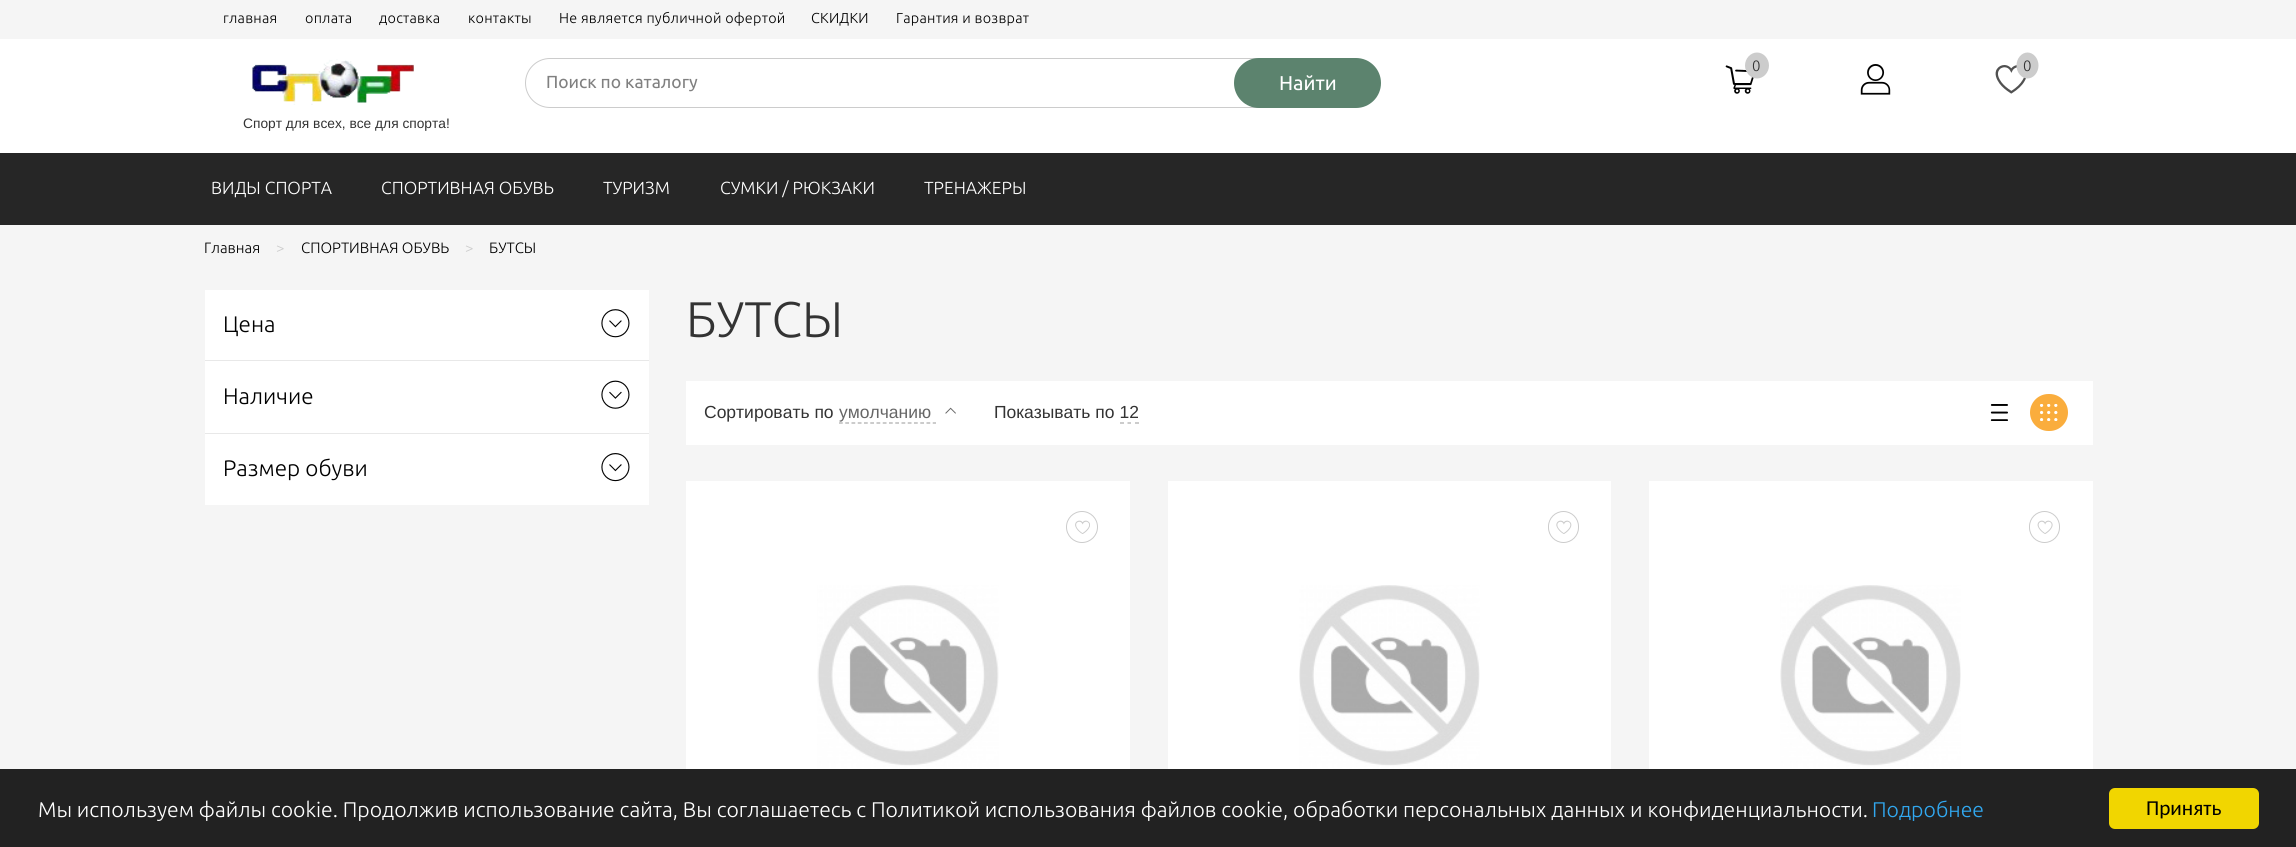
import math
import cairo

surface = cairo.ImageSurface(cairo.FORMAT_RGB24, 2296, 847)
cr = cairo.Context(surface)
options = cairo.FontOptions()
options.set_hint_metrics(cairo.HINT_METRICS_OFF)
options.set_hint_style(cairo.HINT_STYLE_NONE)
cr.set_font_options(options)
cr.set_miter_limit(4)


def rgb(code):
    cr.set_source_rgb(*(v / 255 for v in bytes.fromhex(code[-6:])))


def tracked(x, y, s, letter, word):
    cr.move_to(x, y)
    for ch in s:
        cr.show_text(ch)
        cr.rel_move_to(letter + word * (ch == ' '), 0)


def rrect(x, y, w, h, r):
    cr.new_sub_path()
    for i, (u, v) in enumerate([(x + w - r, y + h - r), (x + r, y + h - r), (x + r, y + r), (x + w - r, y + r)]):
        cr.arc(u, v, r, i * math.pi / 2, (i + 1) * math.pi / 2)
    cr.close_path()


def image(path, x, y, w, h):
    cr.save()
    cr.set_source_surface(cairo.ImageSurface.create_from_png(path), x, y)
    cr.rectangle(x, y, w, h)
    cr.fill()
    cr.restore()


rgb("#f5f5f5")
cr.paint()
rgb("#ffffff")
cr.rectangle(0, 39, 2296, 114)
cr.fill()
image("img/1.png", 1725, 65, 29, 29)
rgb("#cccccc")
cr.new_path()
cr.move_to(1757, 52.5)
cr.curve_to(1763.5, 52.5, 1769, 58.5, 1769, 65.5)
cr.curve_to(1769, 72.5, 1763.5, 78.5, 1757, 78.5)
cr.curve_to(1750.5, 78.5, 1745, 72.5, 1745, 65.5)
cr.curve_to(1745, 58.5, 1750.5, 52.5, 1757, 52.5)
cr.close_path()
cr.fill()
image("img/2.png", 1860, 64, 31, 31)
image("img/3.png", 1995, 65, 31, 29)
cr.new_path()
cr.move_to(2027.5, 52.5)
cr.curve_to(2033.5, 52.5, 2038.5, 58.5, 2038.5, 65.5)
cr.curve_to(2038.5, 72.5, 2033.5, 78.5, 2027.5, 78.5)
cr.curve_to(2021.5, 78.5, 2016.5, 72.5, 2016.5, 65.5)
cr.curve_to(2016.5, 58.5, 2021.5, 52.5, 2027.5, 52.5)
cr.close_path()
cr.fill()
rrect(525.5, 58.5, 759, 49, 24.5)
cr.set_line_width(1)
cr.stroke()
rgb("#5c836e")
rrect(1234, 58, 147, 50, 25)
cr.fill()
image("img/4.png", 252, 59, 162, 46)
for x, y, w, h, color in [
    (0, 153, 2296, 72, "#262626"),
    (205, 290, 444, 215, "#ffffff"),
    (205, 360, 444, 1, "#e8e8e8"),
]:
    rgb(color)
    cr.rectangle(x, y, w, h)
    cr.fill()
image("img/5.png", 601, 309, 29, 29)
cr.rectangle(205, 433, 444, 1)
cr.fill()
image("img/6.png", 601, 380, 29, 29)
image("img/7.png", 601, 453, 29, 29)
rgb("#ffffff")
cr.rectangle(686, 381, 1407, 64)
cr.fill()
cr.new_path()
cr.move_to(839, 423)
cr.line_to(936, 423)
rgb("#aaaaaa")
cr.set_line_width(1.2)
cr.set_dash([3.75, 2.5])
cr.stroke()
image("img/8.png", 945, 407, 11, 7)
cr.new_path()
cr.move_to(1120, 423)
cr.line_to(1124, 423)
cr.move_to(1127.5, 423)
cr.line_to(1131, 423)
cr.move_to(1135, 423)
cr.line_to(1139, 423)
cr.set_dash([])
cr.stroke()
image("img/9.png", 1990, 404, 18, 17)
rgb("#faad3d")
rrect(2030, 394, 38, 37, 18.5)
cr.fill()
image("img/10.png", 2040, 404, 18, 17)
rgb("#ffffff")
cr.rectangle(686, 481, 444, 288)
cr.fill()
image("img/11.png", 1075, 520, 15, 14)
cr.arc(1082, 527, 15.5, 0, 2 * math.pi)
rgb("#cccccc")
cr.set_line_width(1)
cr.stroke()
image("img/12.png", 817, 585, 182, 184)
rgb("#ffffff")
cr.rectangle(1168, 481, 443, 288)
cr.fill()
image("img/13.png", 1556, 520, 16, 14)
rrect(1548.5, 511.5, 30, 31, 15)
rgb("#cccccc")
cr.stroke()
image("img/14.png", 1299, 585, 181, 184)
rgb("#ffffff")
cr.rectangle(1649, 481, 444, 288)
cr.fill()
image("img/15.png", 2037, 520, 16, 14)
rrect(2029.5, 511.5, 30, 31, 15)
rgb("#cccccc")
cr.stroke()
image("img/16.png", 1780, 585, 181, 184)
rgb("#222222")
cr.rectangle(0, 769, 2296, 78)
cr.fill()
rgb("#f1d600")
rrect(2109, 788, 150, 41, 6)
cr.fill()
cr.select_font_face("Ubuntu Light")
cr.set_font_size(14.4)
rgb("#000000")
for x, y, s in [
    (223, 23, "главная"),
    (305, 23, "оплата"),
    (379, 23, "доставка"),
    (468, 23, "контакты"),
    (559, 23, "Не является публичной офертой"),
    (811, 23, "СКИДКИ"),
    (896, 23, "Гарантия и возврат"),
]:
    tracked(x, y, s, 0.25, 0)
cr.set_font_size(15)
rgb("#333333")
cr.move_to(1752, 71)
cr.show_text("0")
cr.move_to(2023, 71)
cr.show_text("0")
cr.select_font_face("Ubuntu")
cr.set_font_size(17.5)
rgb("#808080")
cr.move_to(546, 88)
cr.show_text("Поиск по каталогу")
cr.set_font_size(20)
rgb("#ffffff")
cr.move_to(1279, 90)
cr.show_text("Найти")
cr.select_font_face("Liberation Sans")
cr.set_font_size(13.75)
rgb("#333333")
cr.move_to(243, 128)
cr.show_text("Спорт для всех, все для спорта!")
cr.select_font_face("Ubuntu Light")
cr.set_font_size(17.5)
rgb("#ffffff")
for x, y, s in [
    (211, 194, "ВИДЫ СПОРТА"),
    (381, 194, "СПОРТИВНАЯ ОБУВЬ"),
    (603, 194, "ТУРИЗМ"),
    (720, 194, "СУМКИ / РЮКЗАКИ"),
    (924, 194, "ТРЕНАЖЕРЫ"),
]:
    cr.move_to(x, y)
    cr.show_text(s)
cr.set_font_size(15)
rgb("#000000")
cr.move_to(204, 253)
cr.show_text("Главная")
rgb("#cccccc")
cr.move_to(276, 253)
cr.show_text(">")
rgb("#000000")
cr.move_to(301, 253)
cr.show_text("СПОРТИВНАЯ ОБУВЬ")
rgb("#cccccc")
cr.move_to(465, 253)
cr.show_text(">")
rgb("#000000")
cr.move_to(489, 253)
cr.show_text("БУТСЫ")
cr.set_font_size(22.5)
for x, y, s in [
    (223, 332, "Цена"),
    (223, 404, "Наличие"),
    (223, 476, "Размер обуви"),
]:
    cr.move_to(x, y)
    cr.show_text(s)
cr.set_font_size(50)
rgb("#333333")
cr.move_to(686, 337)
cr.show_text("БУТСЫ")
cr.select_font_face("Liberation Sans")
cr.set_font_size(17.5)
cr.move_to(704, 418)
cr.show_text("Сортировать по")
rgb("#666666")
cr.move_to(839, 418)
cr.show_text("умолчанию")
rgb("#333333")
cr.move_to(994, 418)
cr.show_text("Показывать по 12")
cr.select_font_face("Ubuntu Light")
cr.set_font_size(21.25)
rgb("#ffffff")
cr.move_to(38, 817)
cr.show_text("Мы используем файлы cookie. Продолжив использование сайта, Вы соглашаетесь с Политикой использования файлов cookie, обработки персональных данных и конфиденциальности.")
rgb("#31a8f0")
cr.move_to(1872, 817)
cr.show_text("Подробнее")
cr.select_font_face("Carlito")
rgb("#000000")
cr.move_to(2146, 815)
cr.show_text("Принять")
surface.write_to_png("page.png")
